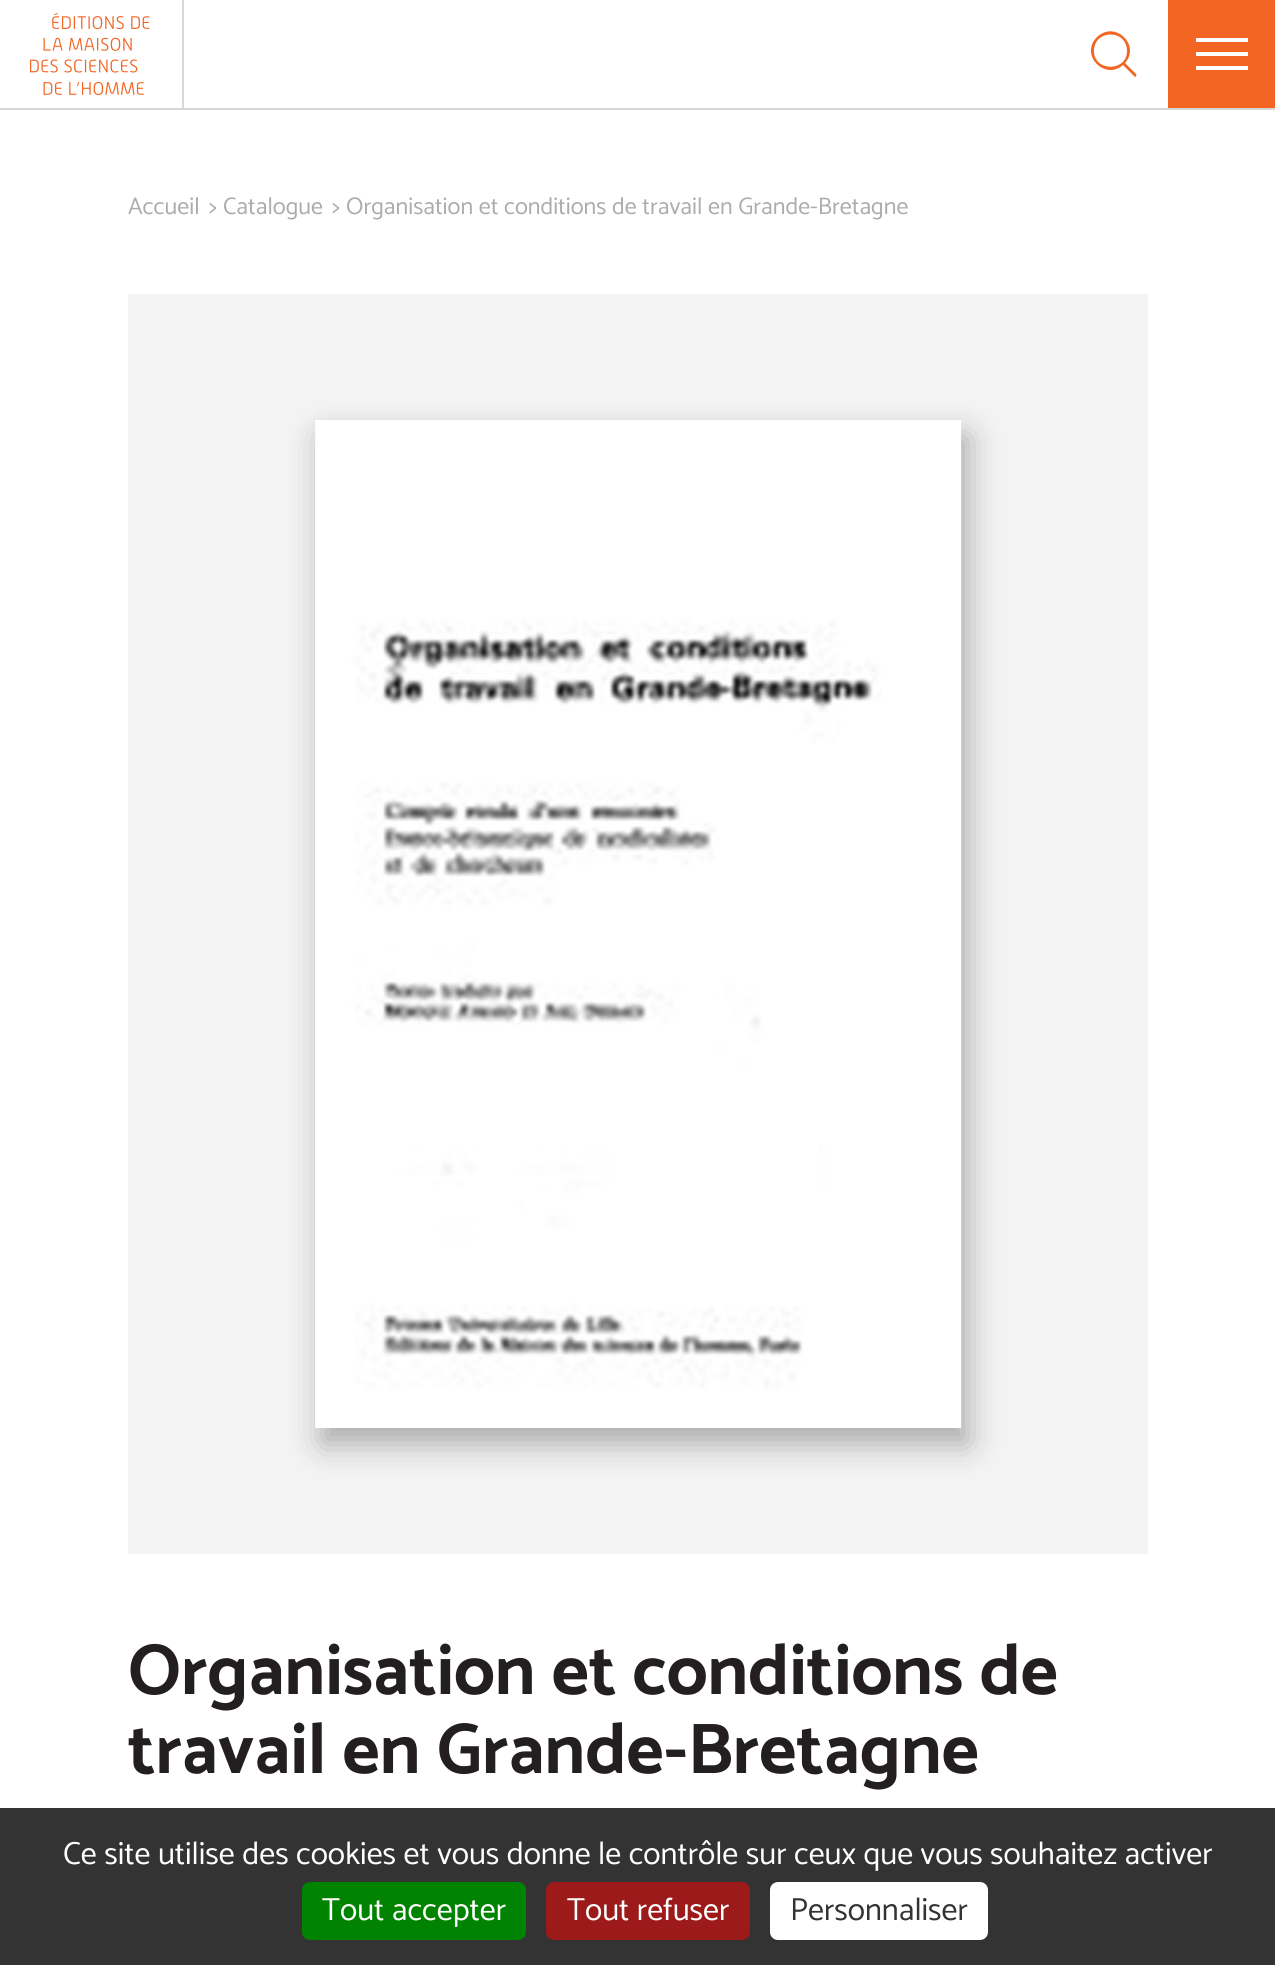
import math
import cairo

surface = cairo.ImageSurface(cairo.FORMAT_RGB24, 1275, 1965)
cr = cairo.Context(surface)
options = cairo.FontOptions()
options.set_hint_metrics(cairo.HINT_METRICS_OFF)
options.set_hint_style(cairo.HINT_STYLE_NONE)
cr.set_font_options(options)
cr.set_miter_limit(4)


def rgb(code):
    cr.set_source_rgb(*(v / 255 for v in bytes.fromhex(code[-6:])))


def rrect(x, y, w, h, r):
    cr.new_sub_path()
    for i, (u, v) in enumerate([(x + w - r, y + h - r), (x + r, y + h - r), (x + r, y + r), (x + w - r, y + r)]):
        cr.arc(u, v, r, i * math.pi / 2, (i + 1) * math.pi / 2)
    cr.close_path()


def soft_shadow(x, y, w, h, r, blur, alpha):
    cr.push_group_with_content(cairo.CONTENT_ALPHA)
    cr.set_operator(cairo.OPERATOR_SOURCE)
    for i in range(15, -16, -2):
        e = blur * i / 6
        if min(w, h) + 2 * e > 0:
            cr.set_source_rgba(0, 0, 0, alpha * math.erfc((i - 1) / 8.5) / 2)
            rrect(x - e, y - e, w + 2 * e, h + 2 * e, max(0, min(r + e + blur * .6, min(w, h) / 2 + e)))
            cr.fill()
    cr.mask(cr.pop_group())


def image(path, x, y, w, h):
    cr.save()
    cr.set_source_surface(cairo.ImageSurface.create_from_png(path), x, y)
    cr.rectangle(x, y, w, h)
    cr.fill()
    cr.restore()


rgb("#ffffff")
cr.paint()
rgb("#d8d8d8")
cr.rectangle(0, 108, 1275, 2)
cr.fill()
cr.rectangle(182, 0, 2, 108)
cr.fill()
image("img/1.png", 30, 13, 120, 82)
rgb("#f26522")
cr.new_path()
cr.move_to(1136, 74)
cr.line_to(1125, 63)
cr.curve_to(1141, 45, 1115, 20, 1097, 37)
cr.curve_to(1079, 55, 1105, 81, 1123, 65)
cr.line_to(1135, 77)
cr.curve_to(1136, 77, 1137, 75, 1136, 74)
cr.close_path()
cr.move_to(1094, 51)
cr.curve_to(1094, 29, 1127, 29, 1127, 51)
cr.curve_to(1127, 72, 1094, 72, 1094, 51)
cr.close_path()
cr.fill()
for x, y, w, h, color in [
    (1168, 0, 107, 108, "#f26522"),
    (1196, 52, 52, 4, "#ffffff"),
    (1196, 38, 52, 4, "#ffffff"),
    (1196, 66, 52, 4, "#ffffff"),
    (128, 294, 1020, 1260, "#f3f3f3"),
]:
    rgb(color)
    cr.rectangle(x, y, w, h)
    cr.fill()
rgb("#000000")
soft_shadow(322, 436, 646, 1008, 0, 16, 0.3)
image("img/2.png", 315, 420, 647, 1008)
rgb("#333333")
cr.rectangle(0, 1808, 1275, 157)
cr.fill()
rgb("#008300")
rrect(302, 1882, 224, 58, 8)
cr.fill()
rgb("#9c1a1a")
rrect(546, 1882, 204, 58, 8)
cr.fill()
rgb("#ffffff")
rrect(770, 1882, 218, 58, 8)
cr.fill()
cr.select_font_face("Catamaran Thin")
cr.set_font_size(24)
rgb("#acacac")
for x, y, s in [
    (128, 214, "Accueil"),
    (209, 214, ">"),
    (223, 214, "Catalogue"),
    (332, 214, ">"),
    (346, 214, "Organisation et conditions de travail en Grande-Bretagne"),
]:
    cr.move_to(x, y)
    cr.show_text(s)
cr.select_font_face("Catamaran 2 Thin")
cr.set_font_size(72)
rgb("#231f20")
cr.move_to(128, 1694)
cr.show_text("Organisation et conditions de")
cr.move_to(128, 1773)
cr.show_text("travail en Grande-Bretagne")
cr.select_font_face("Catamaran Thin")
cr.set_font_size(32)
rgb("#ffffff")
for x, y, s in [
    (63, 1864, "Ce site utilise des cookies et vous donne le contrôle sur ceux que vous souhaitez activer"),
    (322, 1920, "Tout accepter"),
    (567, 1920, "Tout refuser"),
]:
    cr.move_to(x, y)
    cr.show_text(s)
rgb("#333333")
cr.move_to(790, 1920)
cr.show_text("Personnaliser")
surface.write_to_png("page.png")
